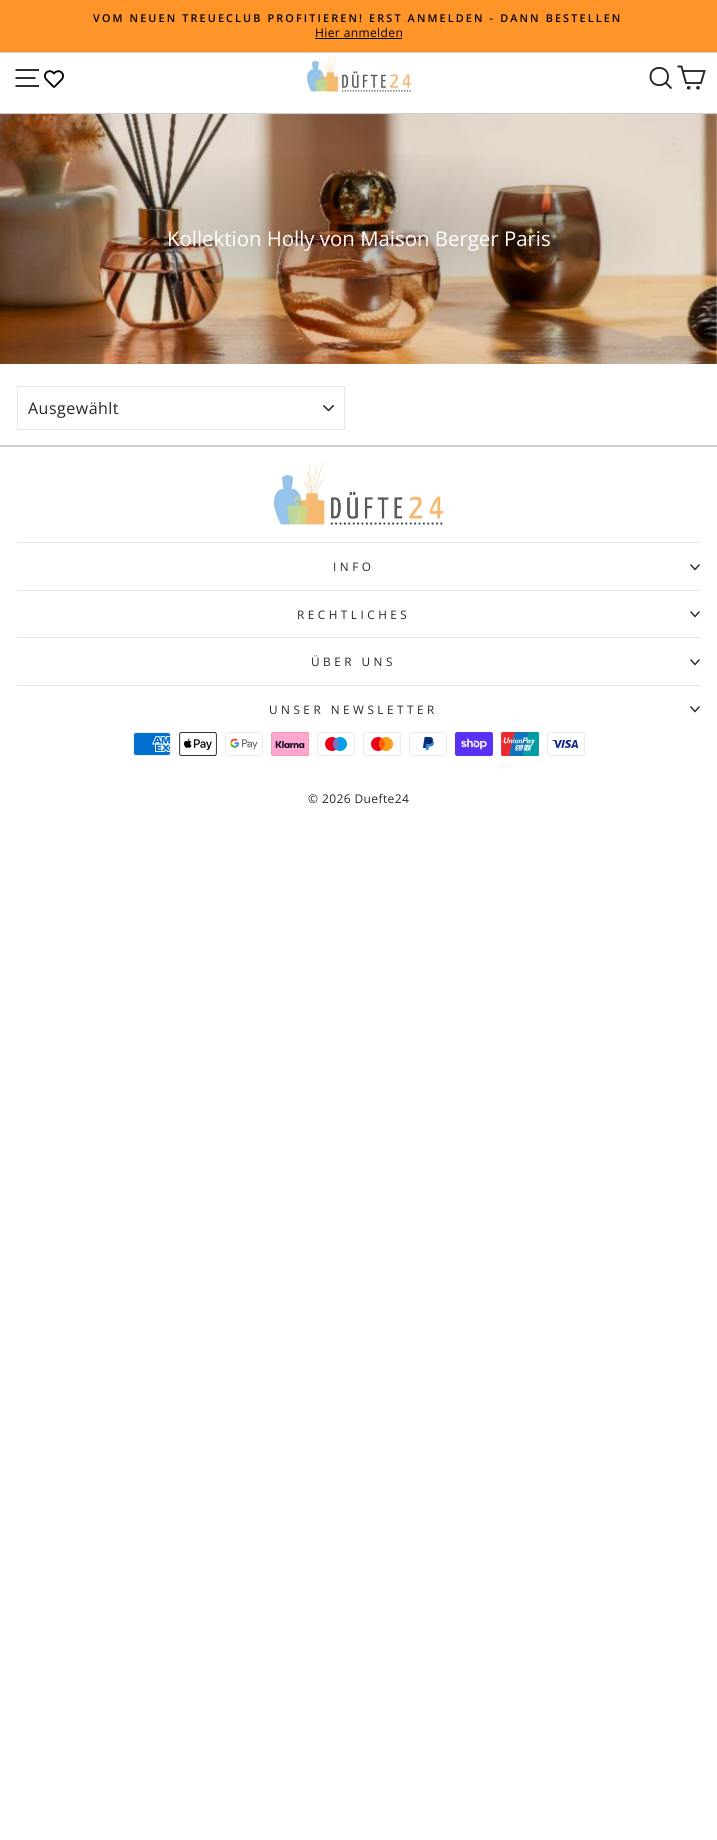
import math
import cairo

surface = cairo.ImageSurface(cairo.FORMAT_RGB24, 717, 1840)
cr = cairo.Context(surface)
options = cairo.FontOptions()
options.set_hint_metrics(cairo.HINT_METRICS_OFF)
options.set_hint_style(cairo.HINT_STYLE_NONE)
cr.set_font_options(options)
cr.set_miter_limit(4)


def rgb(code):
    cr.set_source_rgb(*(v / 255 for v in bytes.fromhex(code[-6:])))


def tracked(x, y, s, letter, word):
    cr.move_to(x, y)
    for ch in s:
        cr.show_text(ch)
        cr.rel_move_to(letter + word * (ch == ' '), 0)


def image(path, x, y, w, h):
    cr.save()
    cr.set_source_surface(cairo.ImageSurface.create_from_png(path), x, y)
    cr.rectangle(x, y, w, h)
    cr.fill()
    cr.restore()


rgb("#ffffff")
cr.paint()
for x, y, w, h, color in [
    (0, 0, 717, 52, "#ff9428"),
    (315, 38, 87, 1, "#000000"),
    (0, 52, 717, 1, "#cccccc"),
]:
    rgb(color)
    cr.rectangle(x, y, w, h)
    cr.fill()
cr.new_path()
cr.move_to(15.5, 70)
cr.line_to(39, 70)
cr.move_to(15.5, 78)
cr.line_to(35.5, 78)
cr.move_to(15.5, 86)
cr.line_to(39, 86)
rgb("#262626")
cr.set_line_width(1.9)
cr.stroke()
image("img/1.png", 44, 70, 20, 18)
image("img/2.png", 304, 53, 110, 40)
cr.new_path()
cr.move_to(668, 76.5)
cr.curve_to(668, 88, 650.5, 88, 650.5, 76.5)
cr.curve_to(650.5, 65, 668, 65, 668, 76.5)
cr.close_path()
cr.move_to(671.5, 88.5)
cr.line_to(665.5, 82.5)
cr.stroke()
cr.new_path()
cr.move_to(682.5, 71)
cr.line_to(704.5, 71)
cr.line_to(701, 83)
cr.line_to(686, 83)
cr.line_to(681.5, 66.5)
cr.line_to(677.5, 66.5)
cr.stroke()
cr.arc(688.7, 87.8, 0.9, 0, 2 * math.pi)
cr.stroke()
cr.arc(698, 87.8, 0.9, 0, 2 * math.pi)
cr.stroke()
rgb("#cccccc")
cr.rectangle(0, 113, 717, 1)
cr.fill()
image("img/3.png", 0, 114, 717, 250)
gradient = cairo.RadialGradient(0, 0, 0, 0, 0, 1)
gradient.set_matrix(cairo.Matrix(1 / 554, 0, 0, 1 / 156, -1 * 359 / 554, -1 * 238 / 156))
gradient.add_color_stop_rgba(0, 0, 0, 0, 0.2)
gradient.add_color_stop_rgba(0.6, 0, 0, 0, 0)
cr.set_source(gradient)
cr.rectangle(62, 154, 594, 168)
cr.fill()
image("img/4.png", 323, 405, 11, 7)
cr.rectangle(17.5, 386.5, 327, 43)
rgb("#e8e8e1")
cr.set_line_width(1)
cr.stroke()
rgb("#cccccc")
cr.rectangle(0, 445, 717, 2)
cr.fill()
image("img/5.png", 273, 462, 171, 64)
rgb("#e5e5e5")
cr.rectangle(17, 542, 683, 1)
cr.fill()
cr.new_path()
cr.move_to(690.5, 564.5)
cr.line_to(695, 569.5)
cr.line_to(699.5, 564.5)
rgb("#262626")
cr.set_line_width(1.4)
cr.stroke()
rgb("#e5e5e5")
cr.rectangle(17, 590, 683, 1)
cr.fill()
cr.new_path()
cr.move_to(690.5, 611.5)
cr.line_to(695, 616.5)
cr.line_to(699.5, 611.5)
rgb("#262626")
cr.stroke()
rgb("#e5e5e5")
cr.rectangle(17, 637, 683, 1)
cr.fill()
cr.new_path()
cr.move_to(690.5, 659.5)
cr.line_to(695, 664.5)
cr.line_to(699.5, 659.5)
rgb("#262626")
cr.stroke()
rgb("#e5e5e5")
cr.rectangle(17, 685, 683, 1)
cr.fill()
cr.new_path()
cr.move_to(690.5, 706.5)
cr.line_to(695, 711.5)
cr.line_to(699.5, 706.5)
rgb("#262626")
cr.stroke()
image("img/6.png", 133, 732, 38, 24)
image("img/7.png", 179, 732, 38, 24)
image("img/8.png", 225, 732, 38, 24)
image("img/9.png", 271, 732, 38, 24)
image("img/10.png", 317, 732, 38, 24)
image("img/11.png", 363, 732, 38, 24)
image("img/12.png", 409, 732, 38, 24)
image("img/13.png", 455, 732, 38, 24)
image("img/14.png", 501, 732, 38, 24)
image("img/15.png", 547, 732, 38, 24)
cr.select_font_face("Open Sans SemiBold")
cr.set_font_size(10.8)
rgb("#000000")
tracked(93, 22, "VOM NEUEN TREUECLUB PROFITIEREN! ERST ANMELDEN - DANN BESTELLEN", 2.15, 0)
cr.select_font_face("Open Sans")
cr.set_font_size(12)
tracked(315, 37, "Hier anmelden", 0.4, 0)
cr.set_font_size(20.4)
rgb("#ffffff")
cr.move_to(167, 246)
cr.show_text("Kollektion Holly von Maison Berger Paris")
cr.set_font_size(16)
rgb("#262626")
tracked(28, 414, "Ausgewählt", 0.5, 0)
cr.set_font_size(11.75)
for x, y, s in [
    (333, 571, "INFO"),
    (297, 619, "RECHTLICHES"),
    (311, 666, "ÜBER UNS"),
    (269, 714, "UNSER NEWSLETTER"),
]:
    tracked(x, y, s, 3.5, 0)
cr.set_font_size(12)
tracked(308, 803, "© 2026 Duefte24", 0.4, 0)
surface.write_to_png("page.png")
